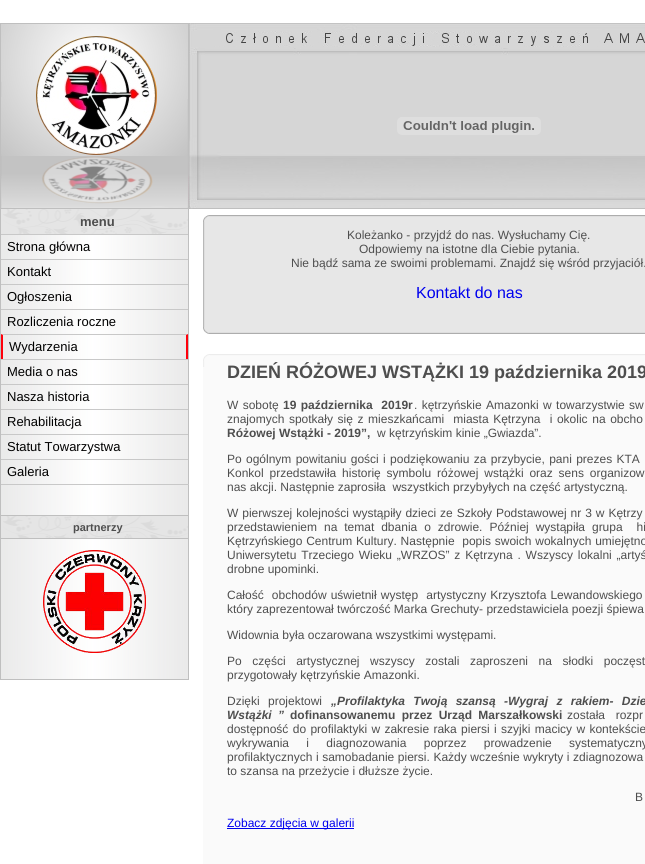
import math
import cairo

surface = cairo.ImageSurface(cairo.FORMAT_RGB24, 645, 864)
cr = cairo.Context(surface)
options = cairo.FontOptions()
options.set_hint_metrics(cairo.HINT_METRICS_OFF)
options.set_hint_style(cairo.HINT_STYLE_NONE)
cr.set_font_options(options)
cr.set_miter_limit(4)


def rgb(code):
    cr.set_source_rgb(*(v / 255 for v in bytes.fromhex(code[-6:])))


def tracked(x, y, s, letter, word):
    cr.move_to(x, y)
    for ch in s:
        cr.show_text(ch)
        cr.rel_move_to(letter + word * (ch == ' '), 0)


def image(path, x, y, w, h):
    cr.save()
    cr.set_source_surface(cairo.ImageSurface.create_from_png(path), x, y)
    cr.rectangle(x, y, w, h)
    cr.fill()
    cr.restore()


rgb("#ffffff")
cr.paint()
image("img/1.png", 0, 23, 189, 187)
image("img/2.png", 189, 23, 456, 186)
image("img/3.png", 397, 117, 144, 18)
image("img/4.png", 0, 210, 189, 469)
rgb("#bfbfbf")
cr.rectangle(0, 679, 189, 1)
cr.fill()
rgb("#e5e5e5")
cr.rectangle(1, 209, 2, 25)
cr.fill()
image("img/5.png", 3, 209, 185, 25)
for x, y, w, h, color in [
    (1, 208, 187, 1, "#bfbfbf"),
    (1, 484, 188, 1, "#c8c8c8"),
    (1, 234, 187, 1, "#c8c8c8"),
    (1, 259, 187, 1, "#c8c8c8"),
    (1, 284, 187, 1, "#c8c8c8"),
    (1, 309, 187, 1, "#c8c8c8"),
]:
    rgb(color)
    cr.rectangle(x, y, w, h)
    cr.fill()
cr.new_path()
cr.move_to(1, 334)
cr.line_to(188, 334)
cr.line_to(186, 335)
cr.line_to(3, 335)
cr.close_path()
cr.fill()
rgb("#ff000b")
cr.new_path()
cr.move_to(188, 334)
cr.line_to(188, 359)
cr.line_to(186, 359)
cr.line_to(186, 335)
cr.close_path()
cr.fill()
cr.new_path()
cr.move_to(1, 359)
cr.line_to(1, 334)
cr.line_to(3, 335)
cr.line_to(3, 359)
cr.close_path()
cr.fill()
for x, y, w, h, color in [
    (1, 359, 187, 1, "#c8c8c8"),
    (1, 384, 187, 1, "#c8c8c8"),
    (1, 409, 187, 1, "#c8c8c8"),
    (1, 434, 187, 1, "#c8c8c8"),
    (1, 459, 187, 1, "#c8c8c8"),
    (1, 516, 2, 22, "#e5e5e5"),
]:
    rgb(color)
    cr.rectangle(x, y, w, h)
    cr.fill()
image("img/6.png", 3, 516, 185, 22)
rgb("#bfbfbf")
cr.rectangle(1, 515, 187, 1)
cr.fill()
cr.rectangle(1, 538, 187, 1)
cr.fill()
image("img/7.png", 43, 550, 103, 103)
image("img/8.png", 203, 215, 442, 13)
image("img/9.png", 203, 228, 442, 96)
image("img/10.png", 203, 324, 442, 10)
image("img/11.png", 203, 354, 442, 13)
rgb("#fafafa")
cr.rectangle(203, 367, 442, 497)
cr.fill()
rgb("#0000ee")
cr.rectangle(227, 828, 127, 1)
cr.fill()
cr.select_font_face("Liberation Sans", cairo.FONT_SLANT_NORMAL, cairo.FONT_WEIGHT_BOLD)
cr.set_font_size(13)
rgb("#4e4e4e")
cr.move_to(80, 226)
cr.show_text("menu")
cr.select_font_face("Liberation Sans")
rgb("#000000")
for x, y, s in [
    (7, 251, "Strona główna"),
    (7, 276, "Kontakt"),
    (7, 301, "Ogłoszenia"),
    (7, 326, "Rozliczenia roczne"),
    (9, 351, "Wydarzenia"),
    (7, 376, "Media o nas"),
    (7, 401, "Nasza historia"),
    (7, 426, "Rehabilitacja"),
    (7, 451, "Statut Towarzystwa"),
    (7, 476, "Galeria"),
]:
    cr.move_to(x, y)
    cr.show_text(s)
cr.select_font_face("Liberation Sans", cairo.FONT_SLANT_NORMAL, cairo.FONT_WEIGHT_BOLD)
cr.set_font_size(11)
rgb("#4e4e4e")
cr.move_to(73, 531)
cr.show_text("partnerzy")
cr.select_font_face("Liberation Sans")
cr.set_font_size(12)
for x, y, s in [
    (347, 239, "Koleżanko - przyjdź do nas. Wysłuchamy Cię."),
    (359, 253, "Odpowiemy na istotne dla Ciebie pytania."),
    (291, 267, "Nie bądź sama ze swoimi problemami. Znajdź się wśród przyjaciół."),
]:
    cr.move_to(x, y)
    cr.show_text(s)
cr.set_font_size(16)
rgb("#0000ee")
cr.move_to(416, 298)
cr.show_text("Kontakt do nas")
cr.select_font_face("Liberation Sans", cairo.FONT_SLANT_NORMAL, cairo.FONT_WEIGHT_BOLD)
cr.set_font_size(18)
rgb("#4e4e4e")
cr.move_to(227, 378)
cr.show_text("DZIEŃ RÓŻOWEJ WSTĄŻKI 19 października 2019")
cr.select_font_face("Liberation Sans")
cr.set_font_size(12)
tracked(227, 409, "W sobotę", 0, 1)
cr.select_font_face("Liberation Sans", cairo.FONT_SLANT_NORMAL, cairo.FONT_WEIGHT_BOLD)
tracked(283, 409, "19 października  2019r", 0, 1)
cr.select_font_face("Liberation Sans")
tracked(414, 409, ". kętrzyńskie Amazonki w towarzystwie sw", 0, 1)
tracked(227, 423, "znajomych spotkały się z mieszkańcami  miasta Kętrzyna  i okolic na obcho", 0, 1.25)
cr.select_font_face("Liberation Sans", cairo.FONT_SLANT_NORMAL, cairo.FONT_WEIGHT_BOLD)
cr.move_to(227, 437)
cr.show_text("Różowej Wstążki - 2019”,")
cr.select_font_face("Liberation Sans")
cr.move_to(377, 437)
cr.show_text("w kętrzyńskim kinie „Gwiazda”.")
tracked(227, 463, "Po ogólnym powitaniu gości i podziękowaniu za przybycie, pani prezes KTA", 0, 1)
tracked(227, 477, "Konkol przedstawiła historię symbolu różowej wstążki oraz sens organizow", 0, 2.5)
cr.move_to(227, 491)
cr.show_text("nas akcji. Następnie zaprosiła  wszystkich przybyłych na część artystyczną.")
tracked(227, 517, "W pierwszej kolejności wystąpiły dzieci ze Szkoły Podstawowej nr 3 w Kętrzy", 0, 0.6)
tracked(227, 531, "przedstawieniem na temat dbania o zdrowie. Później wystąpiła grupa  hi", 0, 3.6)
tracked(227, 545, "Kętrzyńskiego Centrum Kultury. Następnie  popis swoich wokalnych umiejętno", 0, 0.5)
tracked(227, 559, "Uniwersytetu Trzeciego Wieku „WRZOS” z Kętrzyna . Wszyscy lokalni „artyś", 0, 1.5)
cr.move_to(227, 573)
cr.show_text("drobne upominki.")
tracked(227, 599, "Całość  obchodów uświetnił występ  artystyczny Krzysztofa Lewandowskiego", 0, 0.75)
cr.move_to(227, 613)
cr.show_text("który zaprezentował twórczość Marka Grechuty- przedstawiciela poezji śpiewa")
cr.move_to(227, 639)
cr.show_text("Widownia była oczarowana wszystkimi występami.")
tracked(227, 665, "Po części artystycznej wszyscy zostali zaproszeni na słodki poczęst", 0, 7.25)
cr.move_to(227, 679)
cr.show_text("przygotowały kętrzyńskie Amazonki.")
tracked(227, 705, "Dzięki projektowi", 0, 5)
cr.select_font_face("Liberation Sans", cairo.FONT_SLANT_ITALIC, cairo.FONT_WEIGHT_BOLD)
tracked(331, 705, "„Profilaktyka Twoją szansą -Wygraj z rakiem- Dzie", 0, 5)
tracked(227, 719, "Wstążki ”", 0, 3)
cr.select_font_face("Liberation Sans", cairo.FONT_SLANT_NORMAL, cairo.FONT_WEIGHT_BOLD)
tracked(290, 719, "dofinansowanemu przez Urząd Marszałkowski", 0, 3)
cr.select_font_face("Liberation Sans")
tracked(567, 719, "została  rozpr", 0, 2)
tracked(227, 733, "dostępność do profilaktyki w zakresie raka piersi i szyjki macicy w kontekście", 0, 1)
tracked(227, 747, "wykrywania i diagnozowania poprzez prowadzenie systematyczny", 0, 14)
tracked(227, 761, "profilaktycznych i samobadanie piersi. Każdy wcześnie wykryty i zdiagnozowa", 0, 0.25)
cr.move_to(227, 775)
cr.show_text("to szansa na przeżycie i dłuższe życie.")
cr.move_to(635, 801)
cr.show_text("B")
rgb("#0000ee")
cr.move_to(227, 827)
cr.show_text("Zobacz zdjęcia w galerii")
surface.write_to_png("page.png")
